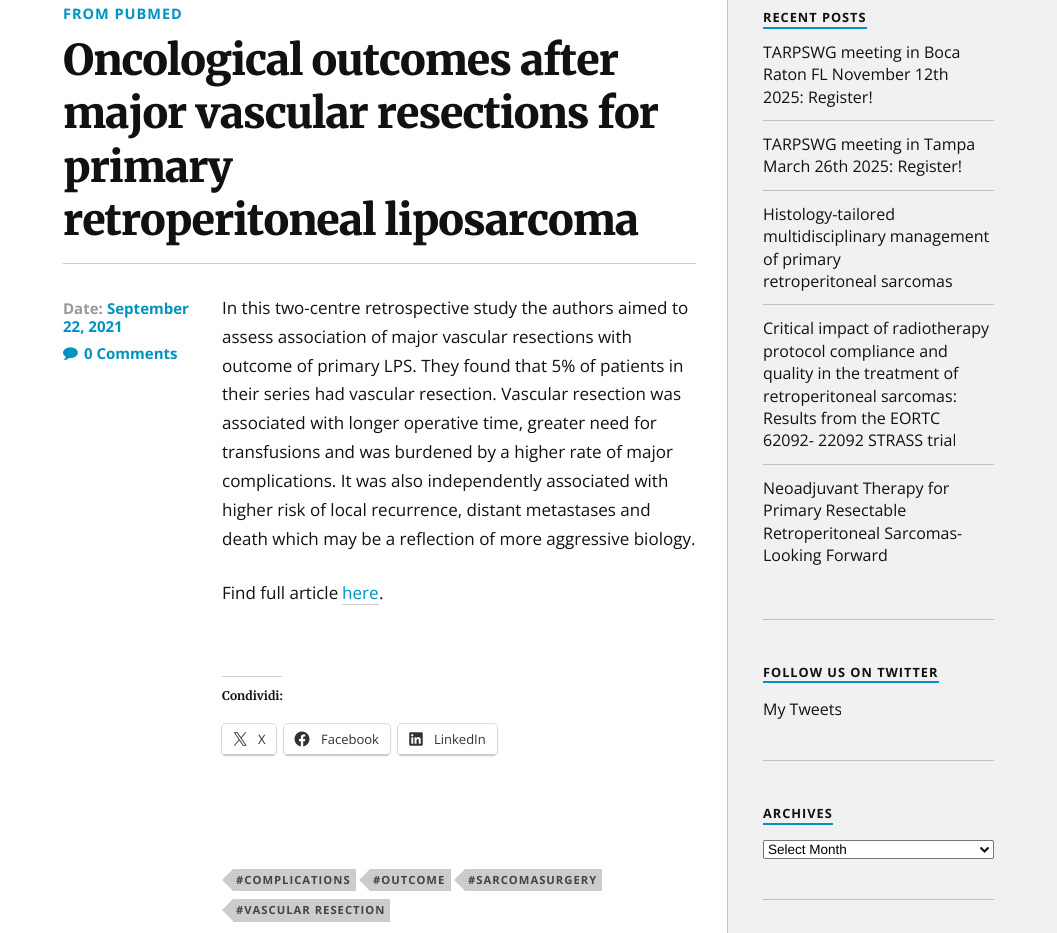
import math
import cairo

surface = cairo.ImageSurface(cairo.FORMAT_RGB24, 1057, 933)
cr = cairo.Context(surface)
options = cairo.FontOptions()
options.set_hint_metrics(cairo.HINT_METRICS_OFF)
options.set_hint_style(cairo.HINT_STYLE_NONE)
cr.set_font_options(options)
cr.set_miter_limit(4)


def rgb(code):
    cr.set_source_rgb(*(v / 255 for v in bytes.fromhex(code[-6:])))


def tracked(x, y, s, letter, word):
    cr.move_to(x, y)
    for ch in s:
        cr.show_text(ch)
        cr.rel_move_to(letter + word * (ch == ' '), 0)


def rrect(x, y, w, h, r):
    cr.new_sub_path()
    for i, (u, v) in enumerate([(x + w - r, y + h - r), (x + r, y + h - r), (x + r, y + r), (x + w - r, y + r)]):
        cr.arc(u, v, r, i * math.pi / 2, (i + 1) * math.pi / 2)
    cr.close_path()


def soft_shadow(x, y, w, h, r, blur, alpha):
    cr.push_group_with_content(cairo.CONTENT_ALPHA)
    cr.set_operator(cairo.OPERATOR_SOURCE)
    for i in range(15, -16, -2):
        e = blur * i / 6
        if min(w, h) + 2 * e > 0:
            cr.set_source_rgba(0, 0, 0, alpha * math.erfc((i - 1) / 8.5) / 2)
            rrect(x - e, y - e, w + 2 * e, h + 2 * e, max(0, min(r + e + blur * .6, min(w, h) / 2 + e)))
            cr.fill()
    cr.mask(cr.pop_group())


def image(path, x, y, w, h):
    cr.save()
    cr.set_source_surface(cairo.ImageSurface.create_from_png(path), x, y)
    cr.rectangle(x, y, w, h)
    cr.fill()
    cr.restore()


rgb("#f1f1f1")
cr.paint()
rgb("#ffffff")
cr.rectangle(0, 0, 727, 933)
cr.fill()
rgb("#cccccc")
cr.rectangle(63, 263, 633, 1)
cr.fill()
image("img/1.png", 63, 347, 15, 14)
cr.rectangle(342, 604, 37, 1)
cr.fill()
cr.rectangle(222, 676, 60, 1)
cr.fill()
rrect(221.5, 723.5, 55, 32, 4.5)
rgb("#e0e0e0")
cr.set_line_width(1)
cr.stroke()
rgb("#000000")
soft_shadow(222, 725, 54, 31, 4, 1, 0.12)
rgb("#ffffff")
rrect(222, 724, 54, 31, 4)
cr.fill()
cr.set_source_rgba(0, 0, 0, 0.2)
cr.rectangle(224, 754, 50, 1)
cr.fill()
image("img/2.png", 233, 732, 14, 14)
rrect(283.5, 723.5, 107, 32, 4.5)
rgb("#e0e0e0")
cr.stroke()
rgb("#000000")
soft_shadow(284, 725, 106, 31, 4, 1, 0.12)
rgb("#ffffff")
rrect(284, 724, 106, 31, 4)
cr.fill()
cr.set_source_rgba(0, 0, 0, 0.2)
cr.rectangle(286, 754, 102, 1)
cr.fill()
image("img/3.png", 294, 731, 16, 16)
rrect(397.5, 723.5, 100, 32, 4.5)
rgb("#e0e0e0")
cr.stroke()
rgb("#000000")
soft_shadow(398, 725, 99, 31, 4, 1, 0.12)
rgb("#ffffff")
rrect(398, 724, 99, 31, 4)
cr.fill()
cr.set_source_rgba(0, 0, 0, 0.2)
cr.rectangle(400, 754, 95, 1)
cr.fill()
image("img/4.png", 409, 732, 14, 14)
rgb("#cccccc")
cr.rectangle(233, 869, 123, 22)
cr.fill()
cr.new_path()
cr.move_to(233, 869)
cr.line_to(233, 891)
cr.line_to(222, 880)
cr.close_path()
cr.fill()
cr.rectangle(370, 869, 81, 22)
cr.fill()
cr.new_path()
cr.move_to(370, 869)
cr.line_to(370, 891)
cr.line_to(359, 880)
cr.close_path()
cr.fill()
cr.rectangle(465, 869, 137, 22)
cr.fill()
cr.new_path()
cr.move_to(465, 869)
cr.line_to(465, 891)
cr.line_to(454, 880)
cr.close_path()
cr.fill()
cr.rectangle(233, 899, 157, 23)
cr.fill()
cr.new_path()
cr.move_to(233, 899)
cr.line_to(233, 921)
cr.line_to(222, 910)
cr.close_path()
cr.fill()
for x, y, w, h, color in [
    (727, 0, 1, 933, "#c1c1c1"),
    (763, 27, 104, 2, "#0093c2"),
    (763, 120, 231, 1, "#c1c1c1"),
    (763, 190, 231, 1, "#c1c1c1"),
    (763, 304, 231, 1, "#c1c1c1"),
    (763, 464, 231, 1, "#c1c1c1"),
    (763, 619, 231, 1, "#c1c1c1"),
    (763, 681, 176, 2, "#0093c2"),
    (763, 760, 231, 1, "#c1c1c1"),
    (763, 823, 70, 2, "#0093c2"),
]:
    rgb(color)
    cr.rectangle(x, y, w, h)
    cr.fill()
rgb("#ffffff")
rrect(763.5, 840.5, 230, 18, 1.5)
cr.fill_preserve()
rgb("#767676")
cr.stroke()
cr.new_path()
cr.move_to(980.5, 847.5)
cr.line_to(984.5, 851.5)
cr.line_to(988.5, 847.5)
rgb("#000000")
cr.set_line_width(2)
cr.stroke()
rgb("#c1c1c1")
cr.rectangle(763, 899, 231, 1)
cr.fill()
cr.select_font_face("Open Sans", cairo.FONT_SLANT_NORMAL, cairo.FONT_WEIGHT_BOLD)
cr.set_font_size(14.5)
rgb("#0093c2")
tracked(63, 19, "FROM PUBMED", 1, 0)
cr.select_font_face("Merriweather Black")
cr.set_font_size(42.5)
rgb("#111111")
for x, y, s in [
    (63, 75, "Oncological outcomes after"),
    (63, 128, "major vascular resections for"),
    (63, 182, "primary"),
    (63, 235, "retroperitoneal liposarcoma"),
]:
    tracked(x, y, s, -1, 0)
cr.select_font_face("Open Sans", cairo.FONT_SLANT_NORMAL, cairo.FONT_WEIGHT_BOLD)
cr.set_font_size(15)
rgb("#999999")
cr.move_to(63, 314)
cr.show_text("Date:")
rgb("#0093c2")
for x, y, s in [
    (107, 314, "September"),
    (63, 332, "22, 2021"),
    (84, 359, "0 Comments"),
]:
    cr.move_to(x, y)
    cr.show_text(s)
cr.select_font_face("Open Sans")
cr.set_font_size(17)
rgb("#111111")
for x, y, s in [
    (222, 314, "In this two-centre retrospective study the authors aimed to"),
    (222, 343, "assess association of major vascular resections with"),
    (222, 372, "outcome of primary LPS. They found that 5% of patients in"),
    (222, 400, "their series had vascular resection. Vascular resection was"),
    (222, 429, "associated with longer operative time, greater need for"),
    (222, 458, "transfusions and was burdened by a higher rate of major"),
    (222, 487, "complications. It was also independently associated with"),
    (222, 516, "higher risk of local recurrence, distant metastases and"),
    (222, 545, "death which may be a reflection of more aggressive biology."),
    (222, 599, "Find full article"),
]:
    cr.move_to(x, y)
    cr.show_text(s)
rgb("#0093c2")
cr.move_to(342, 599)
cr.show_text("here")
rgb("#111111")
cr.move_to(379, 599)
cr.show_text(".")
cr.select_font_face("Merriweather", cairo.FONT_SLANT_NORMAL, cairo.FONT_WEIGHT_BOLD)
cr.set_font_size(12)
cr.move_to(222, 700)
cr.show_text("Condividi:")
cr.select_font_face("Open Sans")
cr.set_font_size(13)
rgb("#2c3338")
for x, y, s in [
    (258, 744, "X"),
    (321, 744, "Facebook"),
    (434, 744, "LinkedIn"),
]:
    cr.move_to(x, y)
    cr.show_text(s)
cr.select_font_face("Open Sans", cairo.FONT_SLANT_NORMAL, cairo.FONT_WEIGHT_BOLD)
cr.set_font_size(11.25)
rgb("#444444")
for x, y, s in [
    (236, 884, "#COMPLICATIONS"),
    (373, 884, "#OUTCOME"),
    (468, 884, "#SARCOMASURGERY"),
    (236, 914, "#VASCULAR RESECTION"),
]:
    tracked(x, y, s, 1, 0)
cr.set_font_size(12.75)
rgb("#111111")
tracked(763, 22, "RECENT POSTS", 1, 0)
cr.select_font_face("Open Sans")
cr.set_font_size(16)
for x, y, s in [
    (763, 58, "TARPSWG meeting in Boca"),
    (763, 80, "Raton FL November 12th"),
    (763, 103, "2025: Register!"),
    (763, 150, "TARPSWG meeting in Tampa"),
    (763, 172, "March 26th 2025: Register!"),
    (763, 220, "Histology-tailored"),
    (763, 242, "multidisciplinary management"),
    (763, 265, "of primary"),
    (763, 287, "retroperitoneal sarcomas"),
    (763, 334, "Critical impact of radiotherapy"),
    (763, 357, "protocol compliance and"),
    (763, 379, "quality in the treatment of"),
    (763, 402, "retroperitoneal sarcomas:"),
    (763, 424, "Results from the EORTC"),
    (763, 446, "62092- 22092 STRASS trial"),
    (763, 494, "Neoadjuvant Therapy for"),
    (763, 516, "Primary Resectable"),
    (763, 539, "Retroperitoneal Sarcomas-"),
    (763, 561, "Looking Forward"),
]:
    cr.move_to(x, y)
    cr.show_text(s)
cr.select_font_face("Open Sans", cairo.FONT_SLANT_NORMAL, cairo.FONT_WEIGHT_BOLD)
cr.set_font_size(12.75)
tracked(763, 677, "FOLLOW US ON TWITTER", 1, 0)
cr.select_font_face("Open Sans")
cr.set_font_size(16)
cr.move_to(763, 715)
cr.show_text("My Tweets")
cr.select_font_face("Open Sans", cairo.FONT_SLANT_NORMAL, cairo.FONT_WEIGHT_BOLD)
cr.set_font_size(12.75)
tracked(763, 818, "ARCHIVES", 1, 0)
cr.select_font_face("Liberation Sans")
cr.set_font_size(13.5)
rgb("#000000")
cr.move_to(768, 854)
cr.show_text("Select Month")
surface.write_to_png("page.png")
